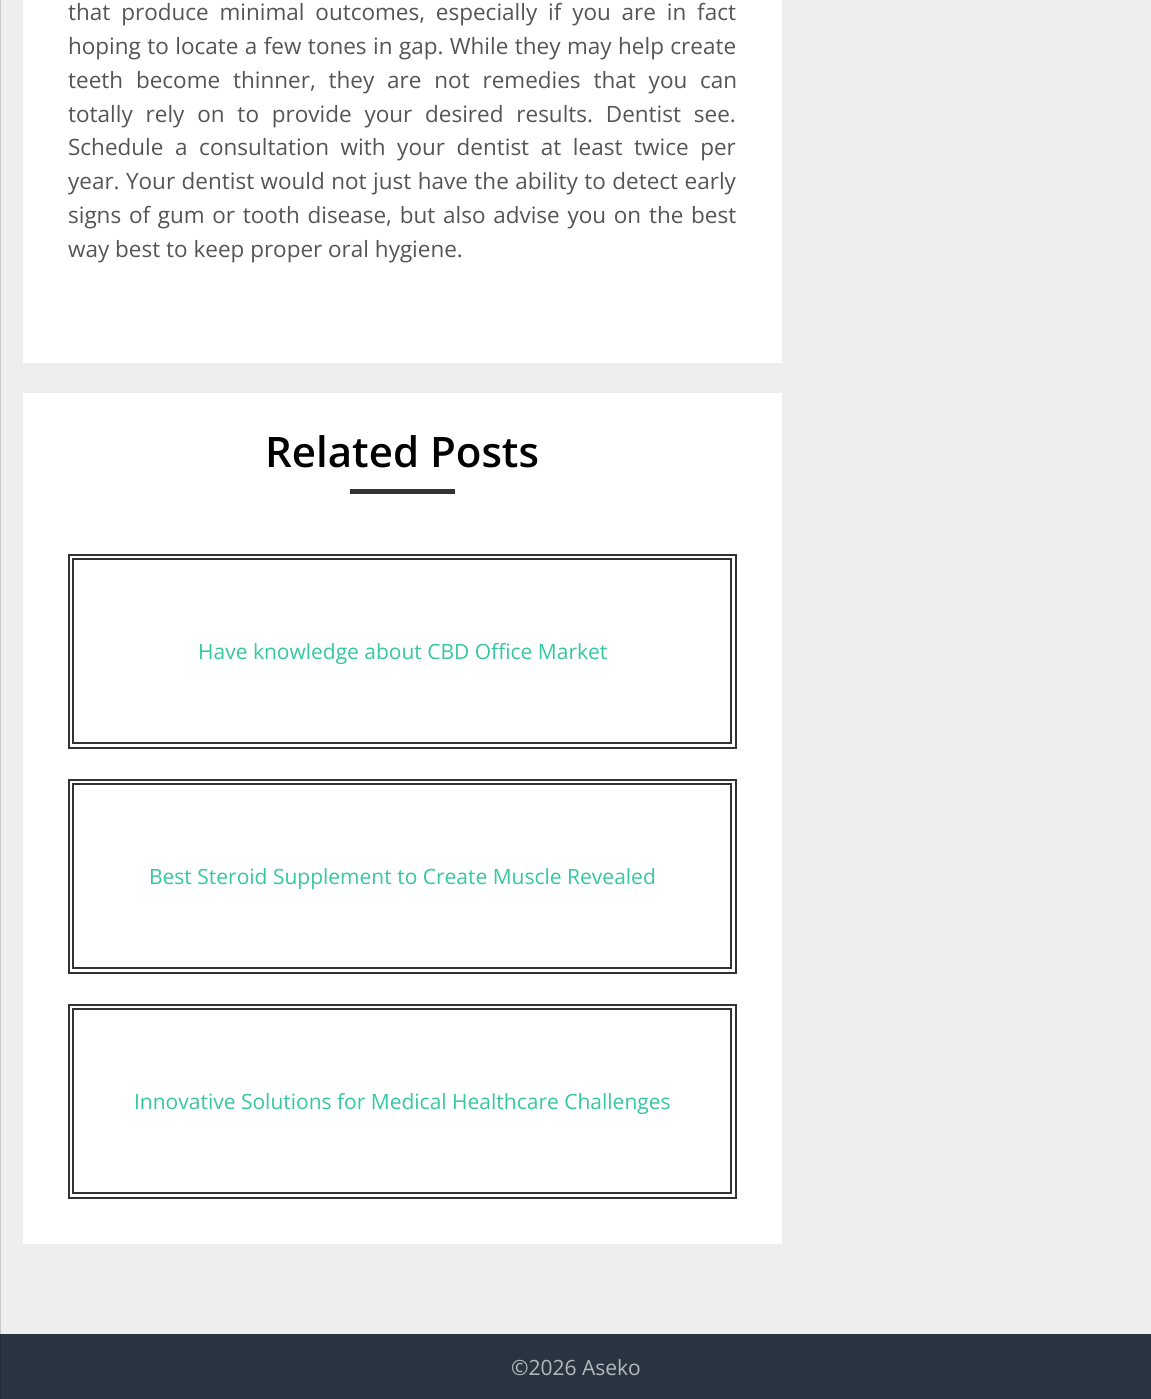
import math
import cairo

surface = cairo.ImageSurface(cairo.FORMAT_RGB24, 1151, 1399)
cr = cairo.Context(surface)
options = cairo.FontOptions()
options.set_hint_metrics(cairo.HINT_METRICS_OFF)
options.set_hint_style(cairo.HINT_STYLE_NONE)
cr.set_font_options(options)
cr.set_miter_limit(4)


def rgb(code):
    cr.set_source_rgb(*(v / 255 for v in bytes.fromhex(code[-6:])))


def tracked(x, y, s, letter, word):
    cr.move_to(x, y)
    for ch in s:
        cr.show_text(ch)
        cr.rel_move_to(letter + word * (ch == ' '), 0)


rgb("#eeeeee")
cr.paint()
for x, y, w, h, color in [
    (0, 0, 1, 1334, "#cacaca"),
    (23, 0, 759, 363, "#ffffff"),
    (23, 393, 759, 851, "#ffffff"),
    (350, 489, 105, 5, "#333333"),
]:
    rgb(color)
    cr.rectangle(x, y, w, h)
    cr.fill()
cr.rectangle(69, 555, 667, 193)
cr.stroke()
cr.rectangle(73, 559, 658, 184)
cr.stroke()
cr.rectangle(69, 780, 667, 193)
cr.stroke()
cr.rectangle(73, 784, 658, 184)
cr.stroke()
cr.rectangle(69, 1005, 667, 193)
cr.stroke()
cr.rectangle(73, 1009, 658, 184)
cr.stroke()
rgb("#283440")
cr.rectangle(1, 1334, 1150, 65)
cr.fill()
rgb("#222c36")
cr.rectangle(0, 1334, 1, 65)
cr.fill()
cr.select_font_face("Open Sans")
cr.set_font_size(22.5)
rgb("#555555")
tracked(68, 20, "that produce minimal outcomes, especially if you are in fact", 0, 5)
tracked(68, 54, "hoping to locate a few tones in gap. While they may help create", 0, 0.6)
tracked(68, 88, "teeth become thinner, they are not remedies that you can", 0, 7)
tracked(68, 122, "totally rely on to provide your desired results. Dentist see.", 0, 7)
tracked(68, 155, "Schedule a consultation with your dentist at least twice per", 0, 5.75)
tracked(68, 189, "year. Your dentist would not just have the ability to detect early", 0, 0.6)
tracked(68, 223, "signs of gum or tooth disease, but also advise you on the best", 0, 1.9)
cr.move_to(68, 257)
cr.show_text("way best to keep proper oral hygiene.")
cr.select_font_face("Open Sans SemiBold")
cr.set_font_size(42)
rgb("#000000")
cr.move_to(265, 467)
cr.show_text("Related Posts")
cr.select_font_face("Open Sans")
cr.set_font_size(21)
rgb("#35c6a2")
for x, y, s in [
    (198, 659, "Have knowledge about CBD Office Market"),
    (149, 884, "Best Steroid Supplement to Create Muscle Revealed"),
    (134, 1109, "Innovative Solutions for Medical Healthcare Challenges"),
]:
    cr.move_to(x, y)
    cr.show_text(s)
rgb("#b4b8bc")
cr.move_to(511, 1375)
cr.show_text("©2026 Aseko")
surface.write_to_png("page.png")
